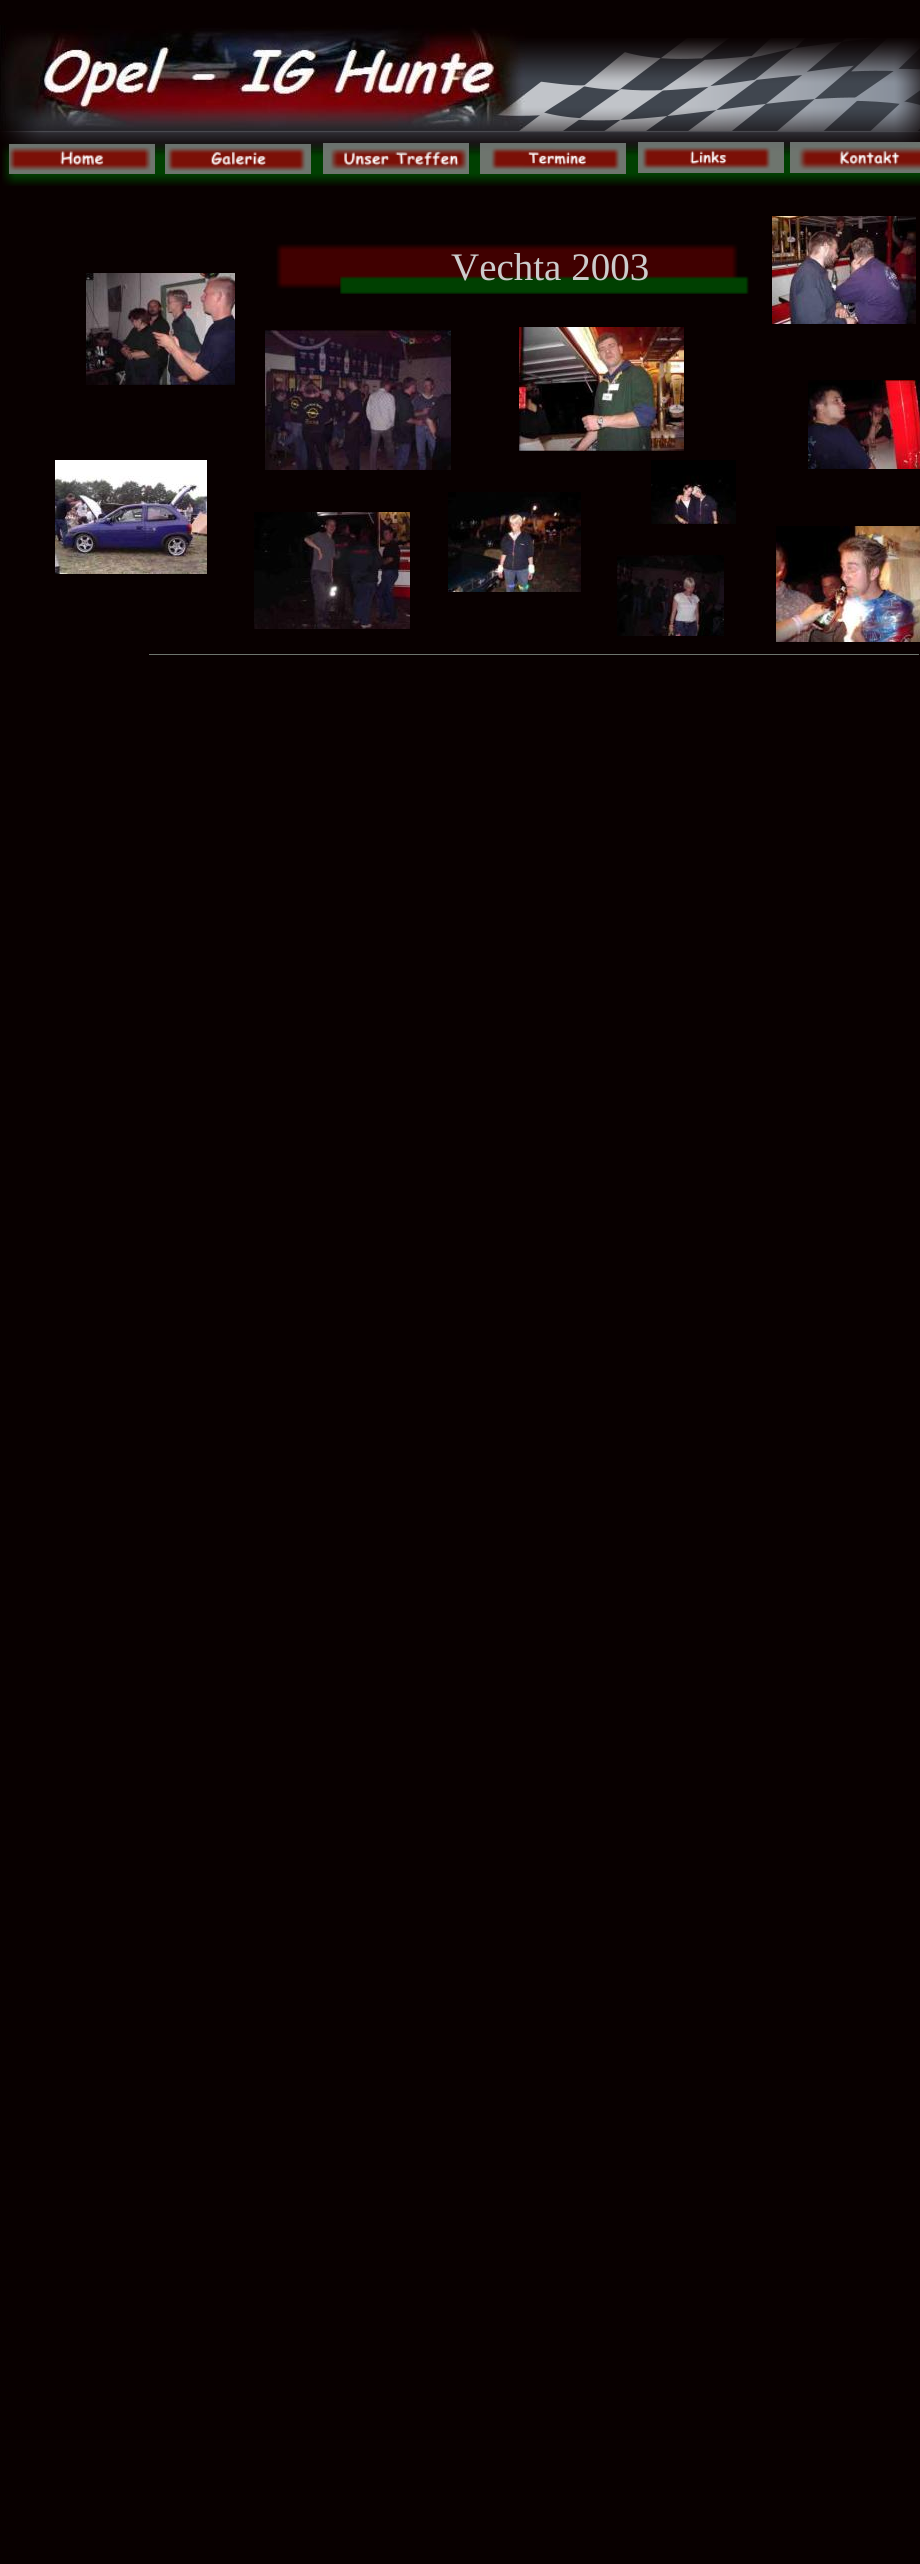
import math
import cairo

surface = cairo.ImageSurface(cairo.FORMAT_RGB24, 920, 2564)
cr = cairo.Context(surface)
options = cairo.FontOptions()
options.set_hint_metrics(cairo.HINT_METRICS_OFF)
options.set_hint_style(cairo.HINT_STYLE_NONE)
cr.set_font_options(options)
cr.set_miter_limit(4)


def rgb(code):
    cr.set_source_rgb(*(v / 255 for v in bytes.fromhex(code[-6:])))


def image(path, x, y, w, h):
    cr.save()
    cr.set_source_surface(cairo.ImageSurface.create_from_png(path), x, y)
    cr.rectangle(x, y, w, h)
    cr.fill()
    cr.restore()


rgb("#080000")
cr.paint()
image("img/3.png", 2, 143, 918, 43)
for x, y, w, h, color in [
    (638, 142, 146, 31, "#6e756e"),
    (790, 142, 130, 31, "#6e756e"),
    (9, 144, 146, 30, "#6e756e"),
    (165, 144, 146, 30, "#6e756e"),
    (323, 143, 146, 31, "#6e756e"),
    (480, 143, 146, 31, "#6e756e"),
]:
    rgb(color)
    cr.rectangle(x, y, w, h)
    cr.fill()
image("img/2.png", 0, 38, 920, 113)
image("img/1.png", 0, 25, 525, 104)
image("img/4.png", 9, 147, 142, 24)
image("img/5.png", 167, 147, 139, 24)
image("img/6.png", 330, 148, 137, 22)
image("img/7.png", 491, 147, 129, 23)
image("img/8.png", 642, 147, 129, 22)
image("img/9.png", 798, 147, 122, 23)
image("img/10.png", 276, 244, 462, 45)
image("img/11.png", 772, 216, 144, 108)
image("img/12.png", 86, 273, 149, 112)
image("img/13.png", 339, 276, 410, 18)
image("img/14.png", 265, 330, 186, 140)
image("img/15.png", 519, 327, 165, 124)
image("img/16.png", 808, 380, 112, 89)
image("img/17.png", 55, 460, 152, 114)
image("img/18.png", 254, 512, 156, 117)
image("img/19.png", 448, 492, 133, 100)
image("img/20.png", 651, 460, 85, 64)
image("img/21.png", 776, 526, 144, 116)
image("img/22.png", 617, 555, 107, 81)
cr.rectangle(149, 654, 770, 1)
cr.fill()
cr.select_font_face("Liberation Serif")
cr.set_font_size(39)
rgb("#cccccc")
cr.move_to(451, 280)
cr.show_text("Vechta 2003")
surface.write_to_png("page.png")
